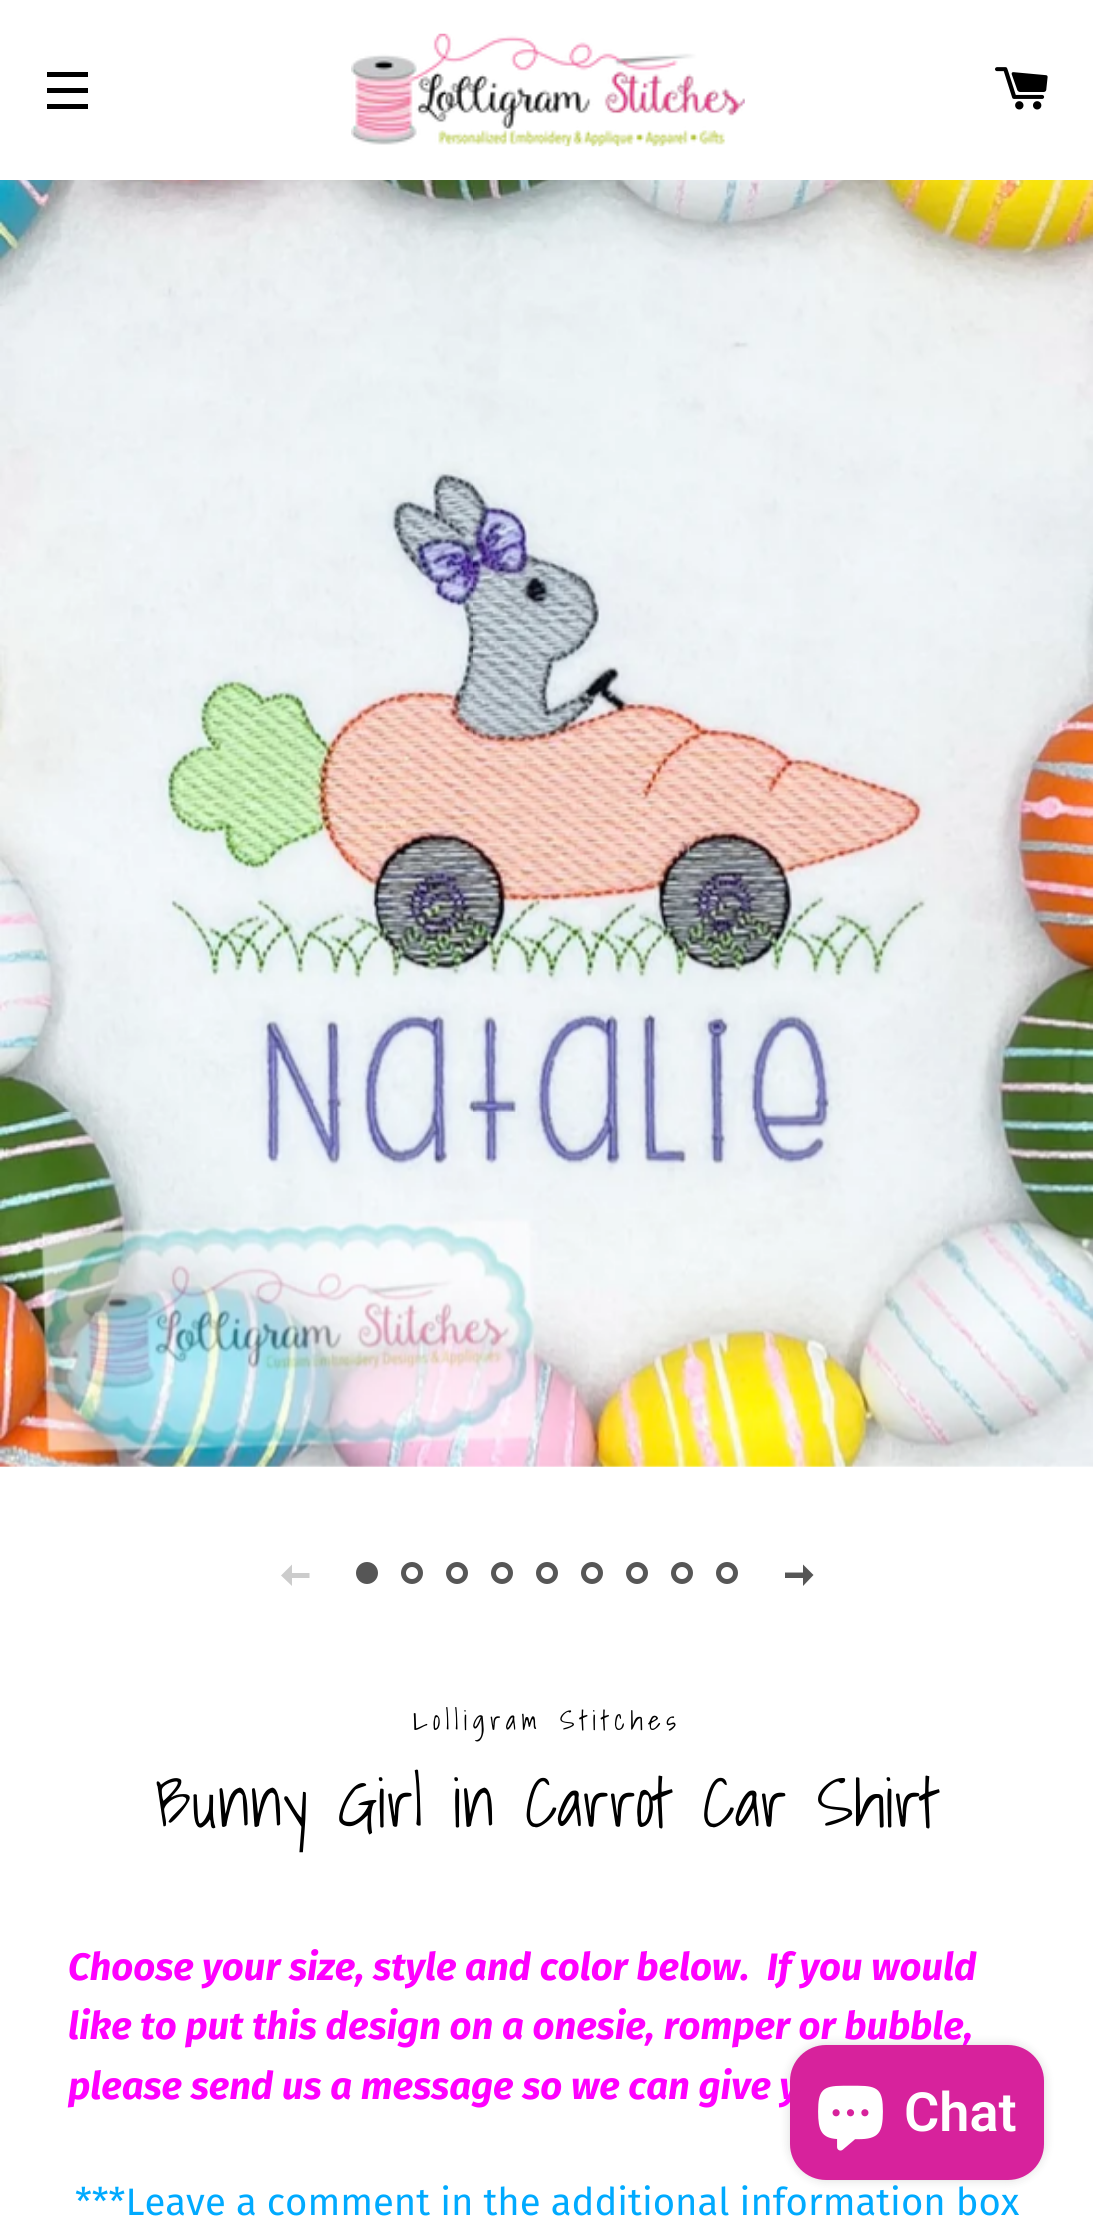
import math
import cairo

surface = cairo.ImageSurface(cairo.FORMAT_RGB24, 1093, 2227)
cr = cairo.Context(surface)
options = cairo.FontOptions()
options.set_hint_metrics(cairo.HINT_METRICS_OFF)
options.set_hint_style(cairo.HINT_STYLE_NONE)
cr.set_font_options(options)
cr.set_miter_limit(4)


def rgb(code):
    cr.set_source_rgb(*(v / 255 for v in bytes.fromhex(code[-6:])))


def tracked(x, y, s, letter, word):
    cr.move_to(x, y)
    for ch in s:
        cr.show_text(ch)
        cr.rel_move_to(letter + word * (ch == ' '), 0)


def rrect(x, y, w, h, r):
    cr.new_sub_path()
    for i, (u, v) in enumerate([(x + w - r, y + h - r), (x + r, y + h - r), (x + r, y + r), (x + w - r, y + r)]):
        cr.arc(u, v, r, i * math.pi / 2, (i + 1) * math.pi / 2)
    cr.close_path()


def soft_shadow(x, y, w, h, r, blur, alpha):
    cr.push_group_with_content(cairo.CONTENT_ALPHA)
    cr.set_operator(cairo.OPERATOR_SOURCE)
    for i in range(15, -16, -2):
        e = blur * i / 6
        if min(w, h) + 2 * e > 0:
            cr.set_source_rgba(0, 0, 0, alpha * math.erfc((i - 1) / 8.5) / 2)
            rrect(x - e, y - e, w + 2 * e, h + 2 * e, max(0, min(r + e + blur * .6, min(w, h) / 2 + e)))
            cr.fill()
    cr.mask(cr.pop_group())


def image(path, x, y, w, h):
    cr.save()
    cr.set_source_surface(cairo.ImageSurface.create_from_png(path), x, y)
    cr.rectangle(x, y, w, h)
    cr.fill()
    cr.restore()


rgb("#ffffff")
cr.paint()
for x, y, w, h, color in [
    (47, 72, 41, 5, "#000000"),
    (47, 88, 41, 5, "#000000"),
    (47, 104, 41, 5, "#000000"),
]:
    rgb(color)
    cr.rectangle(x, y, w, h)
    cr.fill()
image("img/1.png", 351, 33, 394, 114)
image("img/2.png", 995, 67, 53, 43)
image("img/3.png", 0, 180, 1093, 1287)
rgb("#cccccc")
cr.new_path()
cr.move_to(281, 1575.5)
cr.line_to(292, 1586)
cr.line_to(292, 1578)
cr.line_to(309.5, 1578)
cr.line_to(309.5, 1573)
cr.line_to(292, 1573)
cr.line_to(292, 1564.5)
cr.close_path()
cr.fill()
rgb("#565656")
cr.arc(367, 1573, 8.5, 0, 2 * math.pi)
cr.fill_preserve()
cr.set_line_width(5)
cr.stroke()
cr.arc(412, 1573, 8.5, 0, 2 * math.pi)
cr.stroke()
cr.arc(457, 1573, 8.5, 0, 2 * math.pi)
cr.stroke()
cr.arc(502, 1573, 8.5, 0, 2 * math.pi)
cr.stroke()
cr.arc(547, 1573, 8.5, 0, 2 * math.pi)
cr.stroke()
cr.arc(592, 1573, 8.5, 0, 2 * math.pi)
cr.stroke()
cr.arc(637, 1573, 8.5, 0, 2 * math.pi)
cr.stroke()
cr.arc(682, 1573, 8.5, 0, 2 * math.pi)
cr.stroke()
cr.arc(727, 1573, 8.5, 0, 2 * math.pi)
cr.stroke()
cr.new_path()
cr.move_to(813.5, 1575)
cr.line_to(803, 1564.5)
cr.line_to(803, 1572.5)
cr.line_to(785, 1572.5)
cr.line_to(785, 1578)
cr.line_to(803, 1578)
cr.line_to(803, 1586)
cr.close_path()
cr.fill()
rgb("#000000")
soft_shadow(790, 2045, 254, 135, 36, 5.5, 0.15)
cr.select_font_face("Shadows Into Light")
cr.set_font_size(27)
rgb("#000000")
tracked(413, 1730, "Lolligram Stitches", 5.4, 0)
cr.set_font_size(67.5)
cr.move_to(155, 1827)
cr.show_text("Bunny Girl in Carrot Car Shirt")
cr.select_font_face("Fira Sans", cairo.FONT_SLANT_ITALIC, cairo.FONT_WEIGHT_BOLD)
cr.set_font_size(38.25)
rgb("#ff00ff")
for x, y, s in [
    (68, 1980, "Choose your size, style and color below.  If you would"),
    (68, 2039, "like to put this design on a onesie, romper or bubble,"),
    (68, 2099, "please send us a message so we can give y"),
]:
    cr.move_to(x, y)
    cr.show_text(s)
cr.select_font_face("Fira Sans")
rgb("#00aaff")
cr.move_to(75, 2215)
cr.show_text("***Leave a comment in the additional information box")
rgb("#d7229c")
rrect(790, 2045, 254, 135, 36)
cr.fill()
image("img/4.png", 818, 2085, 65, 66)
cr.select_font_face("Roboto SemiBold")
cr.set_font_size(54)
rgb("#ffffff")
cr.move_to(904, 2131)
cr.show_text("Chat")
surface.write_to_png("page.png")
